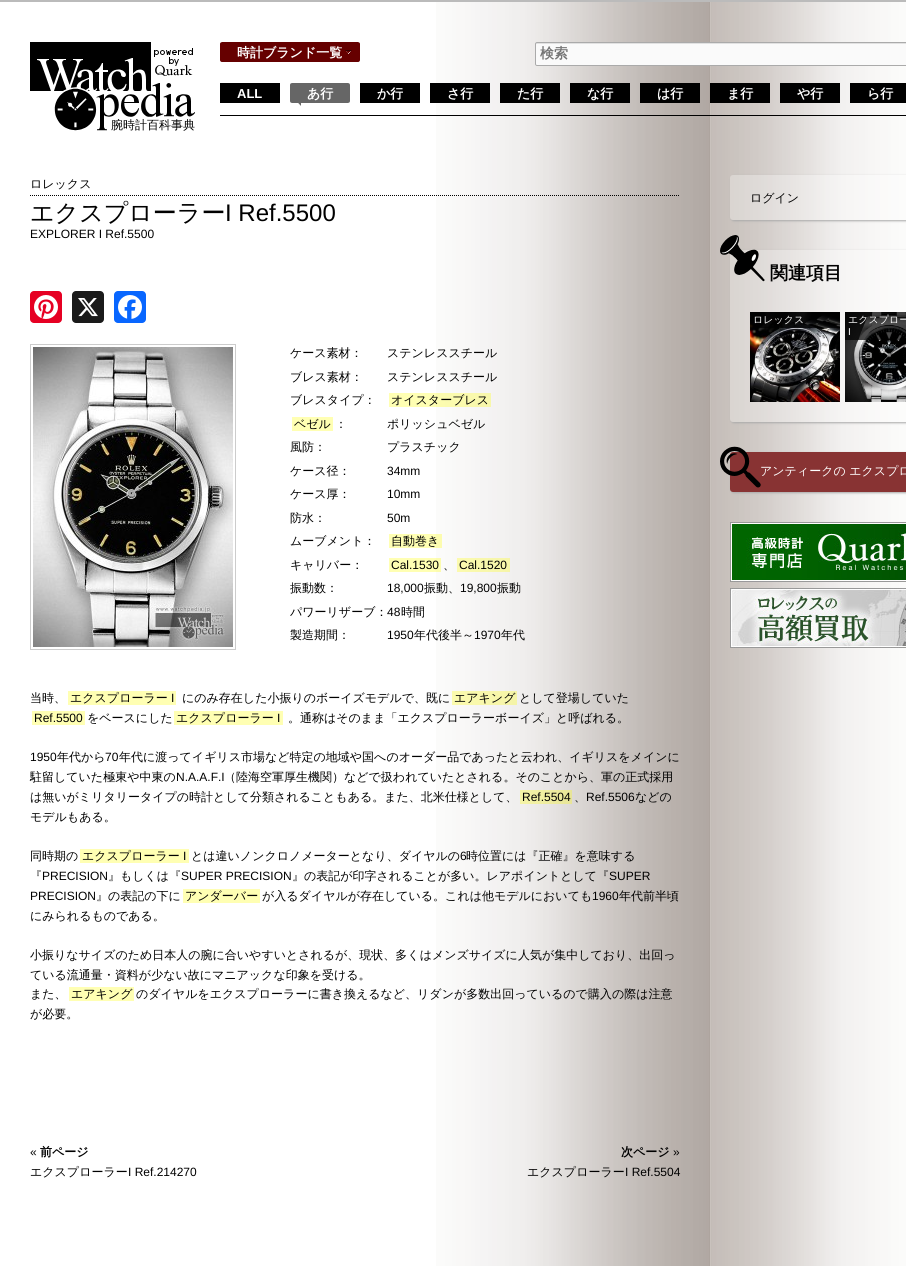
import math
import cairo

surface = cairo.ImageSurface(cairo.FORMAT_RGB24, 906, 1266)
cr = cairo.Context(surface)
options = cairo.FontOptions()
options.set_hint_metrics(cairo.HINT_METRICS_OFF)
options.set_hint_style(cairo.HINT_STYLE_NONE)
cr.set_font_options(options)
cr.set_miter_limit(4)


def rgb(code):
    cr.set_source_rgb(*(v / 255 for v in bytes.fromhex(code[-6:])))


def rrect(x, y, w, h, r):
    cr.new_sub_path()
    for i, (u, v) in enumerate([(x + w - r, y + h - r), (x + r, y + h - r), (x + r, y + r), (x + w - r, y + r)]):
        cr.arc(u, v, r, i * math.pi / 2, (i + 1) * math.pi / 2)
    cr.close_path()


def soft_shadow(x, y, w, h, r, blur, alpha):
    cr.push_group_with_content(cairo.CONTENT_ALPHA)
    cr.set_operator(cairo.OPERATOR_SOURCE)
    for i in range(15, -16, -2):
        e = blur * i / 6
        if min(w, h) + 2 * e > 0:
            cr.set_source_rgba(0, 0, 0, alpha * math.erfc((i - 1) / 8.5) / 2)
            rrect(x - e, y - e, w + 2 * e, h + 2 * e, max(0, min(r + e + blur * .6, min(w, h) / 2 + e)))
            cr.fill()
    cr.mask(cr.pop_group())


def image(path, x, y, w, h):
    cr.save()
    cr.set_source_surface(cairo.ImageSurface.create_from_png(path), x, y)
    cr.rectangle(x, y, w, h)
    cr.fill()
    cr.restore()


rgb("#ffffff")
cr.paint()
image("img/1.png", 436, 2, 470, 1264)
rgb("#bbbbbb")
cr.rectangle(0, 0, 906, 2)
cr.fill()
rgb("#000000")
cr.rectangle(220, 115, 686, 1)
cr.fill()
image("img/2.png", 220, 42, 140, 20)
cr.rectangle(220, 83, 60, 20)
cr.fill()
image("img/3.png", 290, 83, 60, 23)
for x, y, w, h, color in [
    (360, 83, 60, 20, "#000000"),
    (430, 83, 60, 20, "#000000"),
    (500, 83, 60, 20, "#000000"),
    (570, 83, 60, 20, "#000000"),
    (640, 83, 60, 20, "#000000"),
    (710, 83, 60, 20, "#000000"),
    (780, 83, 60, 20, "#000000"),
    (850, 83, 56, 20, "#000000"),
]:
    rgb(color)
    cr.rectangle(x, y, w, h)
    cr.fill()
rgb("#fafafa")
rrect(535, 42, 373, 24, 2)
cr.fill()
rgb("#e1e1e1")
cr.new_path()
cr.move_to(537, 44)
cr.line_to(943, 44)
cr.line_to(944, 44)
cr.line_to(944, 45)
cr.line_to(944, 44)
cr.line_to(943, 43)
cr.line_to(536, 43)
cr.line_to(536, 45)
cr.curve_to(536, 44, 536, 44, 537, 44)
cr.close_path()
cr.fill()
rrect(535.5, 42.5, 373, 23, 1.5)
rgb("#aaaaaa")
cr.set_line_width(1)
cr.stroke()
image("img/4.png", 30, 42, 165, 89)
cr.new_path()
cr.move_to(30, 195.5)
cr.line_to(680, 195.5)
rgb("#000000")
cr.set_dash([1, 1])
cr.stroke()
rgb("#e60023")
rrect(30, 291, 32, 32, 4)
cr.fill()
image("img/5.png", 34, 295, 24, 24)
rgb("#1a1a1a")
rrect(72, 291, 32, 32, 4)
cr.fill()
image("img/6.png", 78, 298, 20, 19)
rgb("#0866ff")
rrect(114, 291, 32, 32, 4)
cr.fill()
image("img/7.png", 118, 295, 24, 24)
cr.rectangle(30.5, 344.5, 205, 305)
rgb("#cccccc")
cr.set_dash([])
cr.stroke()
image("img/8.png", 33, 347, 200, 300)
cr.set_source_rgba(1, 1, 0, 0.3)
cr.rectangle(389, 393, 102, 14)
cr.fill()
rgb("#ffffb3")
cr.rectangle(292, 417, 41, 14)
cr.fill()
cr.set_source_rgba(1, 1, 0, 0.3)
cr.rectangle(389, 534, 53, 14)
cr.fill()
cr.rectangle(389, 558, 52, 14)
cr.fill()
cr.rectangle(457, 558, 53, 14)
cr.fill()
rgb("#ffffb3")
cr.rectangle(68, 691, 108, 14)
cr.fill()
cr.set_source_rgba(1, 1, 0, 0.3)
cr.rectangle(452, 691, 65, 14)
cr.fill()
rgb("#ffffb3")
cr.rectangle(32, 711, 53, 14)
cr.rectangle(174, 711, 109, 14)
cr.fill()
cr.set_source_rgba(1, 1, 0, 0.3)
cr.rectangle(520, 790, 52, 14)
cr.fill()
rgb("#ffffb3")
cr.rectangle(80, 849, 109, 14)
cr.rectangle(183, 889, 77, 14)
cr.rectangle(69, 987, 65, 14)
cr.fill()
cr.save()
cr.set_fill_rule(cairo.FILL_RULE_EVEN_ODD)
cr.new_path()
cr.move_to(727, 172)
cr.line_to(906, 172)
cr.line_to(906, 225)
cr.line_to(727, 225)
cr.close_path()
cr.move_to(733, 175)
cr.line_to(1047, 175)
cr.curve_to(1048.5, 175, 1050, 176.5, 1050, 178)
cr.line_to(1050, 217)
cr.curve_to(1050, 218.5, 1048.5, 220, 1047, 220)
cr.line_to(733, 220)
cr.curve_to(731.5, 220, 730, 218.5, 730, 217)
cr.line_to(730, 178)
cr.curve_to(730, 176.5, 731.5, 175, 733, 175)
cr.close_path()
cr.clip()
rgb("#aaaaaa")
soft_shadow(731, 176, 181, 45, 3, 1, 1)
cr.restore()
cr.set_source_rgba(1, 1, 1, 0.3)
rrect(730, 175, 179, 45, 3)
cr.fill()
cr.save()
cr.set_fill_rule(cairo.FILL_RULE_EVEN_ODD)
cr.new_path()
cr.move_to(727, 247)
cr.line_to(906, 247)
cr.line_to(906, 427)
cr.line_to(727, 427)
cr.close_path()
cr.move_to(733, 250)
cr.line_to(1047, 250)
cr.curve_to(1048.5, 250, 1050, 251.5, 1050, 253)
cr.line_to(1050, 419)
cr.curve_to(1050, 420.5, 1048.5, 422, 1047, 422)
cr.line_to(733, 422)
cr.curve_to(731.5, 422, 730, 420.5, 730, 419)
cr.line_to(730, 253)
cr.curve_to(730, 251.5, 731.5, 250, 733, 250)
cr.close_path()
cr.clip()
rgb("#aaaaaa")
soft_shadow(731, 251, 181, 172, 3, 1, 1)
cr.restore()
rrect(730, 250, 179, 172, 3)
cr.fill()
image("img/9.png", 720, 235, 45, 47)
image("img/10.png", 750, 312, 90, 90)
cr.set_source_rgba(0, 0, 0, 0.7)
cr.rectangle(750, 312, 90, 16)
cr.fill()
image("img/11.png", 845, 312, 61, 90)
cr.rectangle(845, 312, 61, 28)
cr.fill()
rgb("#aaaaaa")
soft_shadow(731, 453, 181, 40, 3, 1, 1)
rgb("#883333")
rrect(730, 452, 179, 40, 3)
cr.fill()
image("img/12.png", 720, 446, 41, 42)
image("img/13.png", 730, 522, 176, 60)
image("img/14.png", 730, 588, 176, 60)
cr.select_font_face("WenQuanYi Zen Hei", cairo.FONT_SLANT_NORMAL, cairo.FONT_WEIGHT_BOLD)
cr.set_font_size(13)
rgb("#ffffff")
cr.move_to(237, 57)
cr.show_text("時計ブランド一覧")
cr.select_font_face("Liberation Sans", cairo.FONT_SLANT_NORMAL, cairo.FONT_WEIGHT_BOLD)
cr.move_to(237, 98)
cr.show_text("ALL")
cr.select_font_face("WenQuanYi Zen Hei", cairo.FONT_SLANT_NORMAL, cairo.FONT_WEIGHT_BOLD)
for x, y, s in [
    (307, 98, "あ行"),
    (377, 98, "か行"),
    (447, 98, "さ行"),
    (517, 98, "た行"),
    (587, 98, "な行"),
    (657, 98, "は行"),
    (727, 98, "ま行"),
    (797, 98, "や行"),
    (867, 98, "ら行"),
]:
    cr.move_to(x, y)
    cr.show_text(s)
cr.set_font_size(14)
rgb("#757575")
cr.move_to(540, 58)
cr.show_text("検索")
cr.select_font_face("WenQuanYi Zen Hei Medium")
cr.set_font_size(12)
rgb("#000000")
cr.move_to(111, 129)
cr.show_text("腕時計百科事典")
cr.move_to(30, 188)
cr.show_text("ロレックス")
cr.set_font_size(24)
cr.move_to(30, 221)
cr.show_text("エクスプローラー")
cr.select_font_face("Liberation Sans")
cr.move_to(225, 221)
cr.show_text("I Ref.5500")
cr.set_font_size(12)
cr.move_to(30, 238)
cr.show_text("EXPLORER I Ref.5500")
cr.select_font_face("WenQuanYi Zen Hei Medium")
for x, y, s in [
    (290, 357, "ケース素材："),
    (387, 357, "ステンレススチール"),
    (290, 381, "ブレス素材："),
    (387, 381, "ステンレススチール"),
    (290, 404, "ブレスタイプ："),
    (391, 404, "オイスターブレス"),
    (294, 428, "ベゼル"),
    (335, 428, "："),
    (387, 428, "ポリッシュベゼル"),
    (290, 451, "風防："),
    (387, 451, "プラスチック"),
    (290, 475, "ケース径："),
]:
    cr.move_to(x, y)
    cr.show_text(s)
cr.select_font_face("Liberation Sans")
cr.move_to(387, 475)
cr.show_text("34mm")
cr.select_font_face("WenQuanYi Zen Hei Medium")
cr.move_to(290, 498)
cr.show_text("ケース厚：")
cr.select_font_face("Liberation Sans")
cr.move_to(387, 498)
cr.show_text("10mm")
cr.select_font_face("WenQuanYi Zen Hei Medium")
cr.move_to(290, 522)
cr.show_text("防水：")
cr.select_font_face("Liberation Sans")
cr.move_to(387, 522)
cr.show_text("50m")
cr.select_font_face("WenQuanYi Zen Hei Medium")
for x, y, s in [
    (290, 545, "ムーブメント："),
    (391, 545, "自動巻き"),
    (290, 569, "キャリバー："),
]:
    cr.move_to(x, y)
    cr.show_text(s)
cr.select_font_face("Liberation Sans")
cr.move_to(391, 569)
cr.show_text("Cal.1530")
cr.select_font_face("WenQuanYi Zen Hei Medium")
cr.move_to(443, 569)
cr.show_text("、")
cr.select_font_face("Liberation Sans")
cr.move_to(459, 569)
cr.show_text("Cal.1520")
cr.select_font_face("WenQuanYi Zen Hei Medium")
cr.move_to(290, 592)
cr.show_text("振動数：")
cr.select_font_face("Liberation Sans")
cr.move_to(387, 592)
cr.show_text("18,000")
cr.select_font_face("WenQuanYi Zen Hei Medium")
cr.move_to(424, 592)
cr.show_text("振動、")
cr.select_font_face("Liberation Sans")
cr.move_to(460, 592)
cr.show_text("19,800")
cr.select_font_face("WenQuanYi Zen Hei Medium")
cr.move_to(497, 592)
cr.show_text("振動")
cr.move_to(290, 616)
cr.show_text("パワーリザーブ：")
cr.select_font_face("Liberation Sans")
cr.move_to(387, 616)
cr.show_text("48")
cr.select_font_face("WenQuanYi Zen Hei Medium")
cr.move_to(401, 616)
cr.show_text("時間")
cr.move_to(290, 639)
cr.show_text("製造期間：")
cr.select_font_face("Liberation Sans")
cr.move_to(387, 639)
cr.show_text("1950")
cr.select_font_face("WenQuanYi Zen Hei Medium")
cr.move_to(414, 639)
cr.show_text("年代後半～")
cr.select_font_face("Liberation Sans")
cr.move_to(474, 639)
cr.show_text("1970")
cr.select_font_face("WenQuanYi Zen Hei Medium")
for x, y, s in [
    (501, 639, "年代"),
    (30, 702, "当時、"),
    (70, 702, "エクスプローラー"),
]:
    cr.move_to(x, y)
    cr.show_text(s)
cr.select_font_face("Liberation Sans")
cr.move_to(171, 702)
cr.show_text("I")
cr.select_font_face("WenQuanYi Zen Hei Medium")
for x, y, s in [
    (182, 702, "にのみ存在した小振りのボーイズモデルで、既に"),
    (454, 702, "エアキング"),
    (519, 702, "として登場していた"),
]:
    cr.move_to(x, y)
    cr.show_text(s)
cr.select_font_face("Liberation Sans")
cr.move_to(34, 722)
cr.show_text("Ref.5500")
cr.select_font_face("WenQuanYi Zen Hei Medium")
cr.move_to(87, 722)
cr.show_text("をベースにした")
cr.move_to(176, 722)
cr.show_text("エクスプローラー")
cr.select_font_face("Liberation Sans")
cr.move_to(277, 722)
cr.show_text("I")
cr.select_font_face("WenQuanYi Zen Hei Medium")
cr.move_to(288, 722)
cr.show_text("。通称はそのまま「エクスプローラーボーイズ」と呼ばれる。")
cr.select_font_face("Liberation Sans")
cr.move_to(30, 761)
cr.show_text("1950")
cr.select_font_face("WenQuanYi Zen Hei Medium")
cr.move_to(57, 761)
cr.show_text("年代から")
cr.select_font_face("Liberation Sans")
cr.move_to(105, 761)
cr.show_text("70")
cr.select_font_face("WenQuanYi Zen Hei Medium")
cr.move_to(119, 761)
cr.show_text("年代に渡ってイギリス市場など特定の地域や国へのオーダー品であったと云われ、イギリスをメインに")
cr.move_to(30, 781)
cr.show_text("駐留していた極東や中東の")
cr.select_font_face("Liberation Sans")
cr.move_to(176, 781)
cr.show_text("N.A.A.F.I")
cr.select_font_face("WenQuanYi Zen Hei Medium")
cr.move_to(224, 781)
cr.show_text("（陸海空軍厚生機関）などで扱われていたとされる。そのことから、軍の正式採用")
cr.move_to(30, 801)
cr.show_text("は無いがミリタリータイプの時計として分類されることもある。また、北米仕様として、")
cr.select_font_face("Liberation Sans")
cr.move_to(522, 801)
cr.show_text("Ref.5504")
cr.select_font_face("WenQuanYi Zen Hei Medium")
cr.move_to(574, 801)
cr.show_text("、")
cr.select_font_face("Liberation Sans")
cr.move_to(586, 801)
cr.show_text("Ref.5506")
cr.select_font_face("WenQuanYi Zen Hei Medium")
for x, y, s in [
    (635, 801, "などの"),
    (30, 821, "モデルもある。"),
    (30, 860, "同時期の"),
    (82, 860, "エクスプローラー"),
]:
    cr.move_to(x, y)
    cr.show_text(s)
cr.select_font_face("Liberation Sans")
cr.move_to(183, 860)
cr.show_text("I")
cr.select_font_face("WenQuanYi Zen Hei Medium")
cr.move_to(191, 860)
cr.show_text("とは違いノンクロノメーターとなり、ダイヤルの")
cr.select_font_face("Liberation Sans")
cr.move_to(460, 860)
cr.show_text("6")
cr.select_font_face("WenQuanYi Zen Hei Medium")
cr.move_to(466, 860)
cr.show_text("時位置には『正確』を意味する")
cr.move_to(30, 880)
cr.show_text("『")
cr.select_font_face("Liberation Sans")
cr.move_to(42, 880)
cr.show_text("PRECISION")
cr.select_font_face("WenQuanYi Zen Hei Medium")
cr.move_to(108, 880)
cr.show_text("』もしくは『")
cr.select_font_face("Liberation Sans")
cr.move_to(181, 880)
cr.show_text("SUPER PRECISION")
cr.select_font_face("WenQuanYi Zen Hei Medium")
cr.move_to(292, 880)
cr.show_text("』の表記が印字されることが多い。レアポイントとして『")
cr.select_font_face("Liberation Sans")
cr.move_to(609, 880)
cr.show_text("SUPER")
cr.move_to(30, 900)
cr.show_text("PRECISION")
cr.select_font_face("WenQuanYi Zen Hei Medium")
for x, y, s in [
    (96, 900, "』の表記の下に"),
    (185, 900, "アンダーバー"),
    (262, 900, "が入るダイヤルが存在している。これは他モデルにおいても"),
]:
    cr.move_to(x, y)
    cr.show_text(s)
cr.select_font_face("Liberation Sans")
cr.move_to(592, 900)
cr.show_text("1960")
cr.select_font_face("WenQuanYi Zen Hei Medium")
for x, y, s in [
    (619, 900, "年代前半頃"),
    (30, 920, "にみられるものである。"),
    (30, 959, "小振りなサイズのため日本人の腕に合いやすいとされるが、現状、多くはメンズサイズに人気が集中しており、出回っ"),
    (30, 979, "ている流通量・資料が少ない故にマニアックな印象を受ける。"),
    (30, 998, "また、"),
    (71, 998, "エアキング"),
    (136, 998, "のダイヤルをエクスプローラーに書き換えるなど、リダンが多数出回っているので購入の際は注意"),
    (30, 1018, "が必要。"),
]:
    cr.move_to(x, y)
    cr.show_text(s)
cr.select_font_face("Liberation Sans")
cr.move_to(30, 1156)
cr.show_text("«")
cr.select_font_face("WenQuanYi Zen Hei", cairo.FONT_SLANT_NORMAL, cairo.FONT_WEIGHT_BOLD)
cr.move_to(40, 1156)
cr.show_text("前ページ")
cr.select_font_face("WenQuanYi Zen Hei Medium")
cr.move_to(30, 1176)
cr.show_text("エクスプローラー")
cr.select_font_face("Liberation Sans")
cr.move_to(128, 1176)
cr.show_text("I Ref.214270")
cr.select_font_face("WenQuanYi Zen Hei", cairo.FONT_SLANT_NORMAL, cairo.FONT_WEIGHT_BOLD)
cr.move_to(621, 1156)
cr.show_text("次ページ")
cr.select_font_face("Liberation Sans")
cr.move_to(673, 1156)
cr.show_text("»")
cr.select_font_face("WenQuanYi Zen Hei Medium")
cr.move_to(527, 1176)
cr.show_text("エクスプローラー")
cr.select_font_face("Liberation Sans")
cr.move_to(625, 1176)
cr.show_text("I Ref.5504")
cr.select_font_face("WenQuanYi Zen Hei Medium")
cr.move_to(750, 202)
cr.show_text("ログイン")
cr.select_font_face("WenQuanYi Zen Hei", cairo.FONT_SLANT_NORMAL, cairo.FONT_WEIGHT_BOLD)
cr.set_font_size(18)
cr.move_to(770, 279)
cr.show_text("関連項目")
cr.select_font_face("WenQuanYi Zen Hei Medium")
cr.set_font_size(10)
rgb("#ffffff")
cr.move_to(753, 323)
cr.show_text("ロレックス")
cr.move_to(848, 323)
cr.show_text("エクスプロー")
cr.select_font_face("Liberation Sans")
cr.move_to(848, 335)
cr.show_text("I")
cr.select_font_face("WenQuanYi Zen Hei Medium")
cr.set_font_size(12)
cr.move_to(760, 475)
cr.show_text("アンティークの エクスプロ")
surface.write_to_png("page.png")
